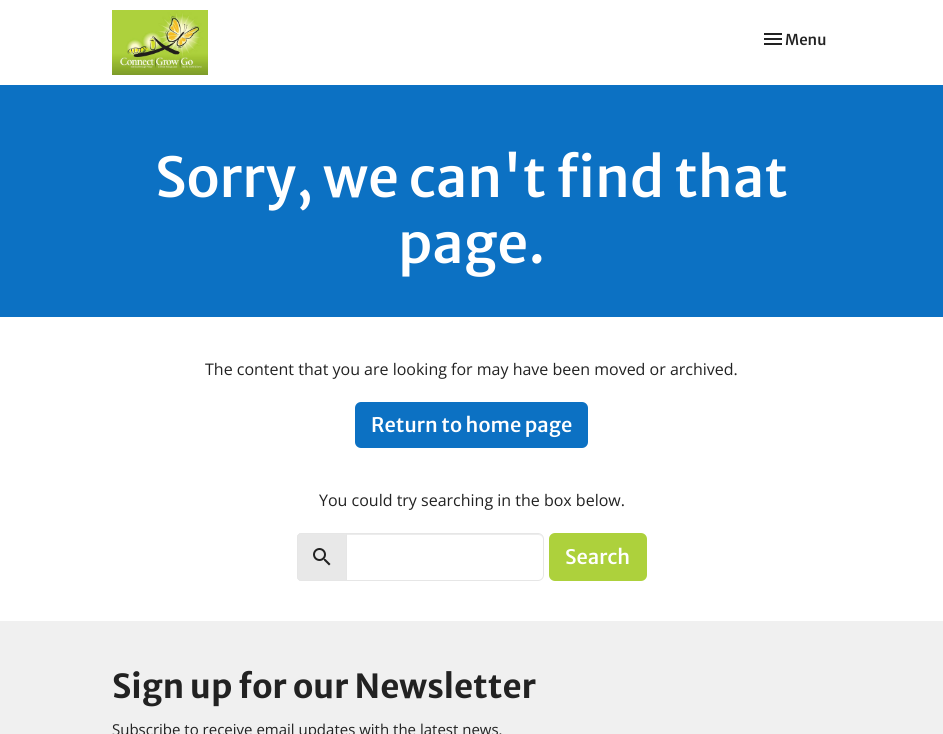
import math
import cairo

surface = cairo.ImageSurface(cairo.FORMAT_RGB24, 943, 734)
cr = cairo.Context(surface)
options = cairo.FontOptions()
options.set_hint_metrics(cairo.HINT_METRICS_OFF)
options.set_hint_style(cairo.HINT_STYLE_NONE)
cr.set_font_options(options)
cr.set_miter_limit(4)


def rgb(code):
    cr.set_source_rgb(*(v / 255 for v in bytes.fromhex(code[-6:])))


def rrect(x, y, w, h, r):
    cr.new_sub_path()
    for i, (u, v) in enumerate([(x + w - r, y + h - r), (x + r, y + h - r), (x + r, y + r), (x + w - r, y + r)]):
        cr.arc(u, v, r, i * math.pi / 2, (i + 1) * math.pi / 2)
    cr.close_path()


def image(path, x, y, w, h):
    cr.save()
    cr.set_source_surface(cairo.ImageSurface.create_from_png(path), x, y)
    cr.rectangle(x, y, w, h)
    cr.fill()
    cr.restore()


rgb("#ffffff")
cr.paint()
image("img/1.png", 112, 10, 96, 65)
image("img/2.png", 764, 33, 18, 12)
rgb("#0c71c3")
cr.rectangle(0, 85, 943, 232)
cr.fill()
rrect(355, 402, 233, 46, 6)
cr.fill()
rgb("#e8e8e8")
cr.new_path()
cr.move_to(301, 533)
cr.line_to(346, 533)
cr.line_to(346, 581)
cr.line_to(301, 581)
cr.curve_to(299, 581, 297, 579, 297, 577)
cr.line_to(297, 537)
cr.curve_to(297, 535, 299, 533, 301, 533)
cr.close_path()
cr.fill()
rgb("#e6e6e6")
cr.set_fill_rule(cairo.FILL_RULE_EVEN_ODD)
cr.new_path()
cr.move_to(301, 533)
cr.line_to(346, 533)
cr.line_to(346, 581)
cr.line_to(301, 581)
cr.curve_to(299, 581, 297, 579, 297, 577)
cr.line_to(297, 537)
cr.curve_to(297, 535, 299, 533, 301, 533)
cr.close_path()
cr.move_to(301, 534)
cr.line_to(346, 534)
cr.line_to(346, 580)
cr.line_to(301, 580)
cr.curve_to(299, 580, 298, 579, 298, 577)
cr.line_to(298, 537)
cr.curve_to(298, 535, 299, 534, 301, 534)
cr.close_path()
cr.fill()
image("img/3.png", 313, 548, 18, 18)
rgb("#ececec")
cr.set_fill_rule(cairo.FILL_RULE_WINDING)
cr.new_path()
cr.move_to(347, 535)
cr.line_to(538, 535)
cr.curve_to(541, 535, 543, 537, 543, 540)
cr.curve_to(543, 537, 542, 535, 539, 534)
cr.line_to(347, 534)
cr.close_path()
cr.fill()
cr.new_path()
cr.move_to(346.5, 533.5)
cr.line_to(538, 533.5)
cr.curve_to(541, 533.5, 543.5, 536, 543.5, 539)
cr.line_to(543.5, 575)
cr.curve_to(543.5, 578, 541, 580.5, 538, 580.5)
cr.line_to(346.5, 580.5)
cr.close_path()
rgb("#e6e6e6")
cr.set_line_width(1)
cr.stroke()
rgb("#add13c")
rrect(549, 533, 98, 48, 6)
cr.fill()
rgb("#f0f0f0")
cr.rectangle(0, 621, 943, 113)
cr.fill()
cr.select_font_face("Merriweather Sans Medium")
cr.set_font_size(15)
rgb("#222222")
cr.move_to(785, 45)
cr.show_text("Menu")
cr.set_font_size(55)
rgb("#ffffff")
cr.move_to(155, 197)
cr.show_text("Sorry, we can't find that")
cr.move_to(398, 263)
cr.show_text("page.")
cr.select_font_face("Open Sans")
cr.set_font_size(16)
rgb("#222222")
cr.move_to(205, 375)
cr.show_text("The content that you are looking for may have been moved or archived.")
cr.select_font_face("Merriweather Sans Medium")
cr.set_font_size(20)
rgb("#ffffff")
cr.move_to(371, 432)
cr.show_text("Return to home page")
cr.select_font_face("Open Sans")
cr.set_font_size(16)
rgb("#222222")
cr.move_to(319, 506)
cr.show_text("You could try searching in the box below.")
cr.select_font_face("Merriweather Sans Medium")
cr.set_font_size(20)
rgb("#ffffff")
cr.move_to(565, 564)
cr.show_text("Search")
cr.select_font_face("Merriweather Sans", cairo.FONT_SLANT_NORMAL, cairo.FONT_WEIGHT_BOLD)
cr.set_font_size(33.1)
rgb("#222222")
cr.move_to(112, 698)
cr.show_text("Sign up for our Newsletter")
cr.select_font_face("Open Sans")
cr.set_font_size(15)
cr.move_to(112, 735)
cr.show_text("Subscribe to receive email updates with the latest news.")
surface.write_to_png("page.png")
